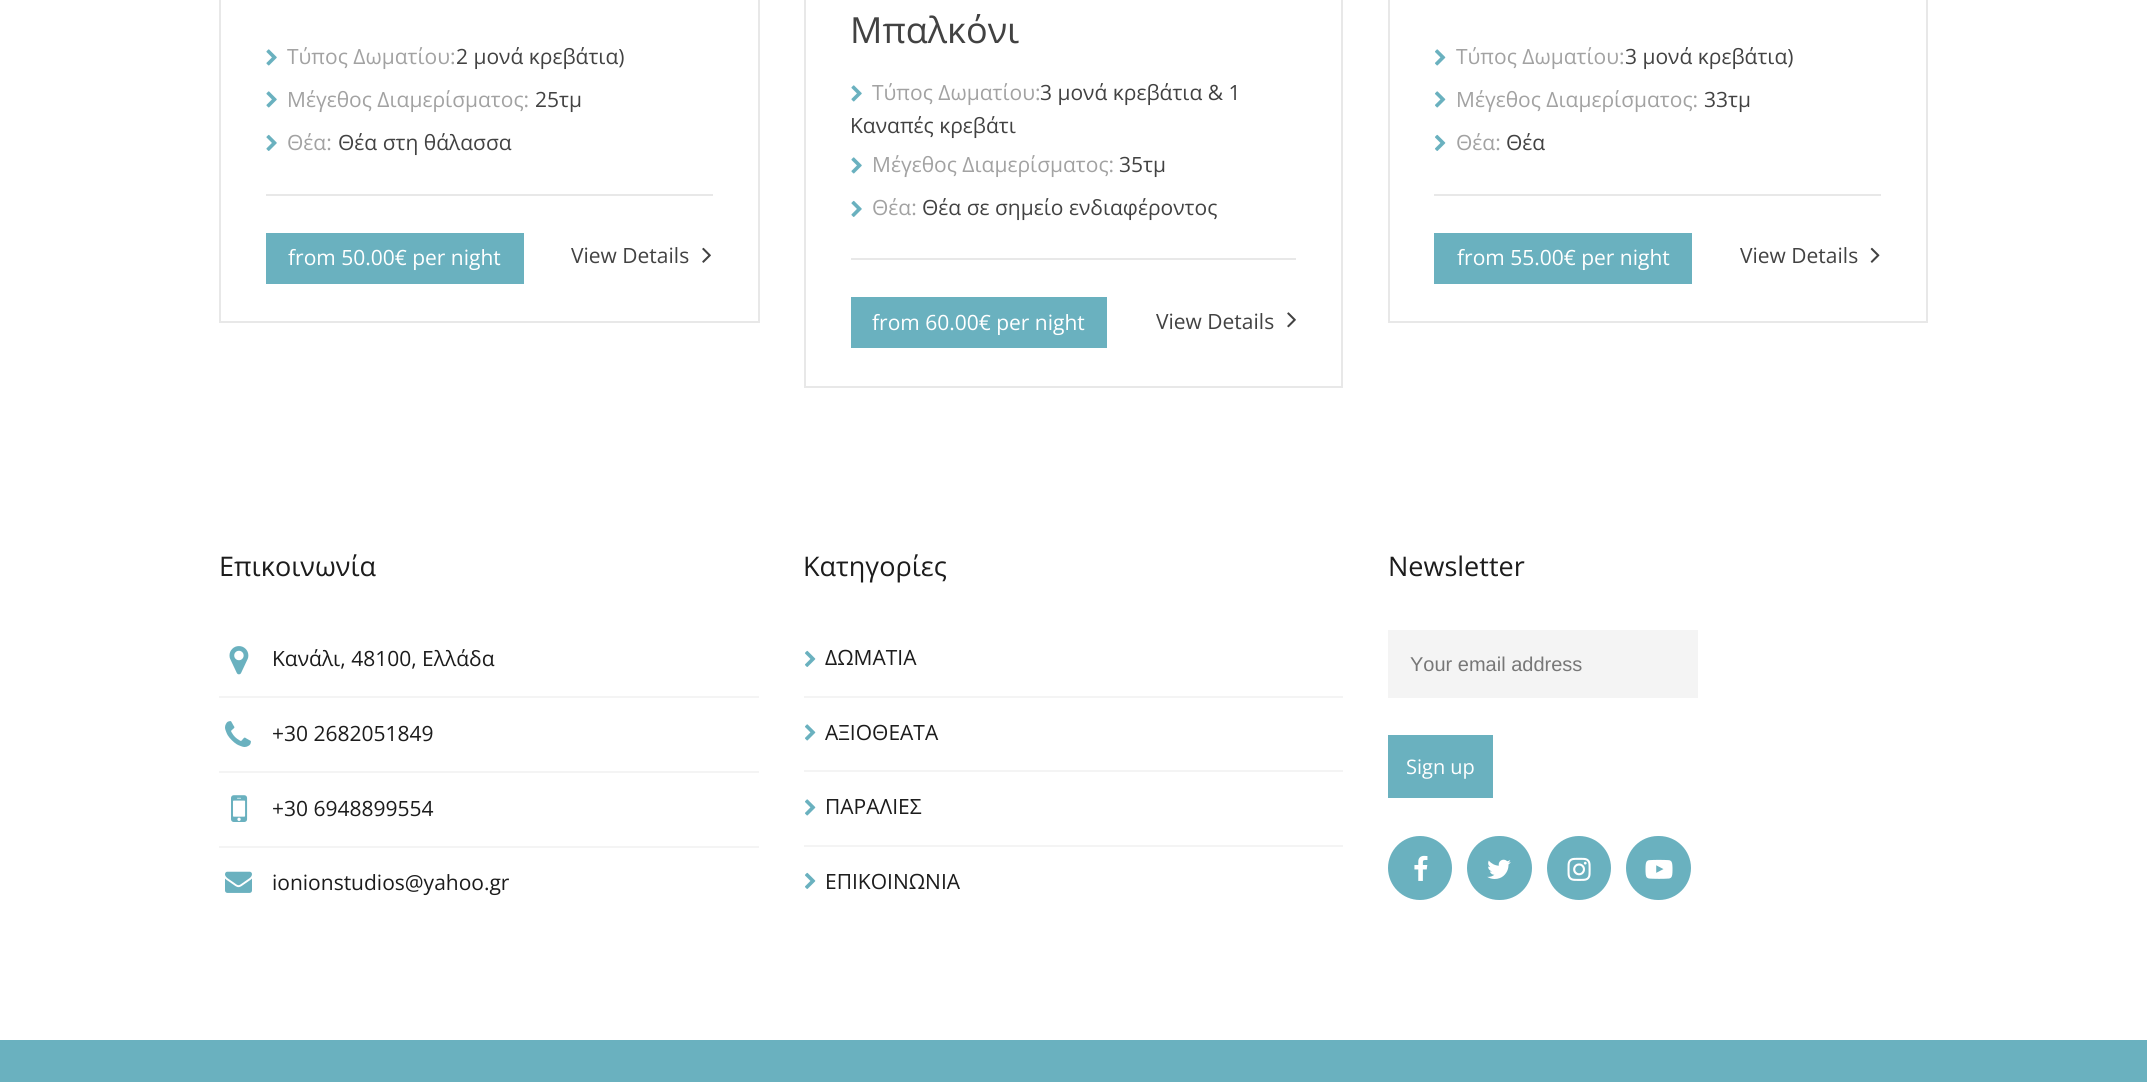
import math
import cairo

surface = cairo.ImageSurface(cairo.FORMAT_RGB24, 2147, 1082)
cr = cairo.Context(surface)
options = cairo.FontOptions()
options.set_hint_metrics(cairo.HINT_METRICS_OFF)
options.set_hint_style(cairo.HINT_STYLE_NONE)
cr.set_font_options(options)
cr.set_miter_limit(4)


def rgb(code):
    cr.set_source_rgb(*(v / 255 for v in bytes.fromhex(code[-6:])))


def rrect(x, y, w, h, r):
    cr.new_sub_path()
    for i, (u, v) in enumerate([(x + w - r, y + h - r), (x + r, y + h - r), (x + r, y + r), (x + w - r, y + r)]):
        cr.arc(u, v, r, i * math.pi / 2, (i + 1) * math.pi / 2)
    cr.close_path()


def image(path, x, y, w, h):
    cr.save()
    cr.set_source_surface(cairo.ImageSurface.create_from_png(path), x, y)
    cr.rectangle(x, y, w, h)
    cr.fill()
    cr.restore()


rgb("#ffffff")
cr.paint()
for x, y, w, h, color in [
    (758, 0, 2, 323, "#e8e8e8"),
    (219, 321, 540, 2, "#e8e8e8"),
    (219, 0, 2, 323, "#e8e8e8"),
    (266, 194, 447, 2, "#e8e8e8"),
]:
    rgb(color)
    cr.rectangle(x, y, w, h)
    cr.fill()
image("img/1.png", 266, 49, 11, 17)
image("img/1.png", 266, 91, 11, 17)
image("img/2.png", 266, 134, 11, 17)
rgb("#6ab1bf")
cr.rectangle(266, 233, 258, 51)
cr.fill()
image("img/3.png", 702, 247, 9, 16)
for x, y, w, h, color in [
    (1341, 0, 2, 387, "#e8e8e8"),
    (804, 386, 539, 2, "#e8e8e8"),
    (804, 0, 2, 387, "#e8e8e8"),
    (851, 258, 445, 2, "#e8e8e8"),
]:
    rgb(color)
    cr.rectangle(x, y, w, h)
    cr.fill()
image("img/1.png", 851, 85, 11, 17)
image("img/1.png", 851, 157, 11, 17)
image("img/2.png", 851, 200, 11, 17)
rgb("#6ab1bf")
cr.rectangle(851, 297, 256, 51)
cr.fill()
image("img/4.png", 1287, 312, 9, 16)
for x, y, w, h, color in [
    (1926, 0, 2, 323, "#e8e8e8"),
    (1388, 321, 540, 2, "#e8e8e8"),
    (1388, 0, 2, 323, "#e8e8e8"),
    (1434, 194, 447, 2, "#e8e8e8"),
]:
    rgb(color)
    cr.rectangle(x, y, w, h)
    cr.fill()
image("img/5.png", 1435, 49, 11, 17)
image("img/5.png", 1435, 91, 11, 17)
image("img/6.png", 1435, 134, 11, 17)
rgb("#6ab1bf")
cr.rectangle(1434, 233, 258, 51)
cr.fill()
image("img/7.png", 1870, 247, 10, 16)
rgb("#f4f4f4")
cr.rectangle(219, 696, 540, 2)
cr.fill()
image("img/8.png", 229, 646, 20, 29)
cr.rectangle(219, 771, 540, 2)
cr.fill()
image("img/9.png", 225, 721, 26, 26)
cr.rectangle(219, 846, 540, 2)
cr.fill()
image("img/10.png", 231, 795, 17, 27)
image("img/11.png", 225, 871, 27, 22)
cr.rectangle(804, 696, 539, 2)
cr.fill()
image("img/6.png", 805, 650, 11, 17)
cr.rectangle(804, 770, 539, 2)
cr.fill()
image("img/5.png", 805, 724, 11, 17)
cr.rectangle(804, 845, 539, 2)
cr.fill()
image("img/5.png", 805, 799, 11, 17)
image("img/6.png", 805, 872, 11, 17)
cr.rectangle(1388, 630, 310, 68)
cr.fill()
rgb("#6ab1bf")
cr.rectangle(1388, 735, 105, 63)
cr.fill()
cr.arc(1420, 868, 32, 0, 2 * math.pi)
cr.fill()
image("img/12.png", 1414, 855, 14, 26)
rrect(1467, 836, 65, 64, 32)
cr.fill()
image("img/13.png", 1487, 859, 24, 20)
cr.arc(1579, 868, 32, 0, 2 * math.pi)
cr.fill()
image("img/14.png", 1567, 857, 24, 24)
rrect(1626, 836, 65, 64, 32)
cr.fill()
image("img/15.png", 1645, 859, 28, 20)
cr.rectangle(0, 1040, 2147, 42)
cr.fill()
cr.select_font_face("Open Sans")
cr.set_font_size(21)
rgb("#a2a2a2")
cr.move_to(287, 64)
cr.show_text("Τύπος Δωματίου:")
rgb("#424242")
cr.move_to(456, 64)
cr.show_text("2 μονά κρεβάτια)")
rgb("#a2a2a2")
cr.move_to(287, 107)
cr.show_text("Μέγεθος Διαμερίσματος:")
rgb("#424242")
cr.move_to(535, 107)
cr.show_text("25τμ")
rgb("#a2a2a2")
cr.move_to(287, 150)
cr.show_text("Θέα:")
rgb("#424242")
cr.move_to(338, 150)
cr.show_text("Θέα στη θάλασσα")
rgb("#ffffff")
cr.move_to(288, 265)
cr.show_text("from 50.00€ per night")
rgb("#424242")
cr.move_to(571, 263)
cr.show_text("View Details")
cr.set_font_size(36)
cr.move_to(850, 43)
cr.show_text("Μπαλκόνι")
cr.set_font_size(21)
rgb("#a2a2a2")
cr.move_to(872, 100)
cr.show_text("Τύπος Δωματίου:")
rgb("#424242")
cr.move_to(1040, 100)
cr.show_text("3 μονά κρεβάτια & 1")
cr.move_to(850, 133)
cr.show_text("Καναπές κρεβάτι")
rgb("#a2a2a2")
cr.move_to(872, 172)
cr.show_text("Μέγεθος Διαμερίσματος:")
rgb("#424242")
cr.move_to(1119, 172)
cr.show_text("35τμ")
rgb("#a2a2a2")
cr.move_to(872, 215)
cr.show_text("Θέα:")
rgb("#424242")
cr.move_to(922, 215)
cr.show_text("Θέα σε σημείο ενδιαφέροντος")
rgb("#ffffff")
cr.move_to(872, 330)
cr.show_text("from 60.00€ per night")
rgb("#424242")
cr.move_to(1156, 329)
cr.show_text("View Details")
rgb("#a2a2a2")
cr.move_to(1456, 64)
cr.show_text("Τύπος Δωματίου:")
rgb("#424242")
cr.move_to(1625, 64)
cr.show_text("3 μονά κρεβάτια)")
rgb("#a2a2a2")
cr.move_to(1456, 107)
cr.show_text("Μέγεθος Διαμερίσματος:")
rgb("#424242")
cr.move_to(1704, 107)
cr.show_text("33τμ")
rgb("#a2a2a2")
cr.move_to(1456, 150)
cr.show_text("Θέα:")
rgb("#424242")
cr.move_to(1506, 150)
cr.show_text("Θέα")
rgb("#ffffff")
cr.move_to(1457, 265)
cr.show_text("from 55.00€ per night")
rgb("#424242")
cr.move_to(1740, 263)
cr.show_text("View Details")
cr.set_font_size(27)
rgb("#1c1c1c")
cr.move_to(219, 576)
cr.show_text("Επικοινωνία")
cr.set_font_size(21)
for x, y, s in [
    (272, 666, "Κανάλι, 48100, Ελλάδα"),
    (272, 741, "+30 2682051849"),
    (272, 816, "+30 6948899554"),
    (272, 890, "ionionstudios@yahoo.gr"),
]:
    cr.move_to(x, y)
    cr.show_text(s)
cr.set_font_size(27)
cr.move_to(803, 576)
cr.show_text("Κατηγορίες")
cr.set_font_size(21)
for x, y, s in [
    (825, 665, "ΔΩΜΑΤΙΑ"),
    (825, 740, "ΑΞΙΟΘΕΑΤΑ"),
    (825, 814, "ΠΑΡΑΛΙΕΣ"),
    (825, 889, "ΕΠΙΚΟΙΝΩΝΙΑ"),
]:
    cr.move_to(x, y)
    cr.show_text(s)
cr.set_font_size(27)
cr.move_to(1388, 576)
cr.show_text("Newsletter")
cr.select_font_face("Liberation Sans")
cr.set_font_size(20)
rgb("#777777")
cr.move_to(1410, 671)
cr.show_text("Your email address")
cr.select_font_face("Open Sans")
rgb("#ffffff")
cr.move_to(1406, 774)
cr.show_text("Sign up")
surface.write_to_png("page.png")
